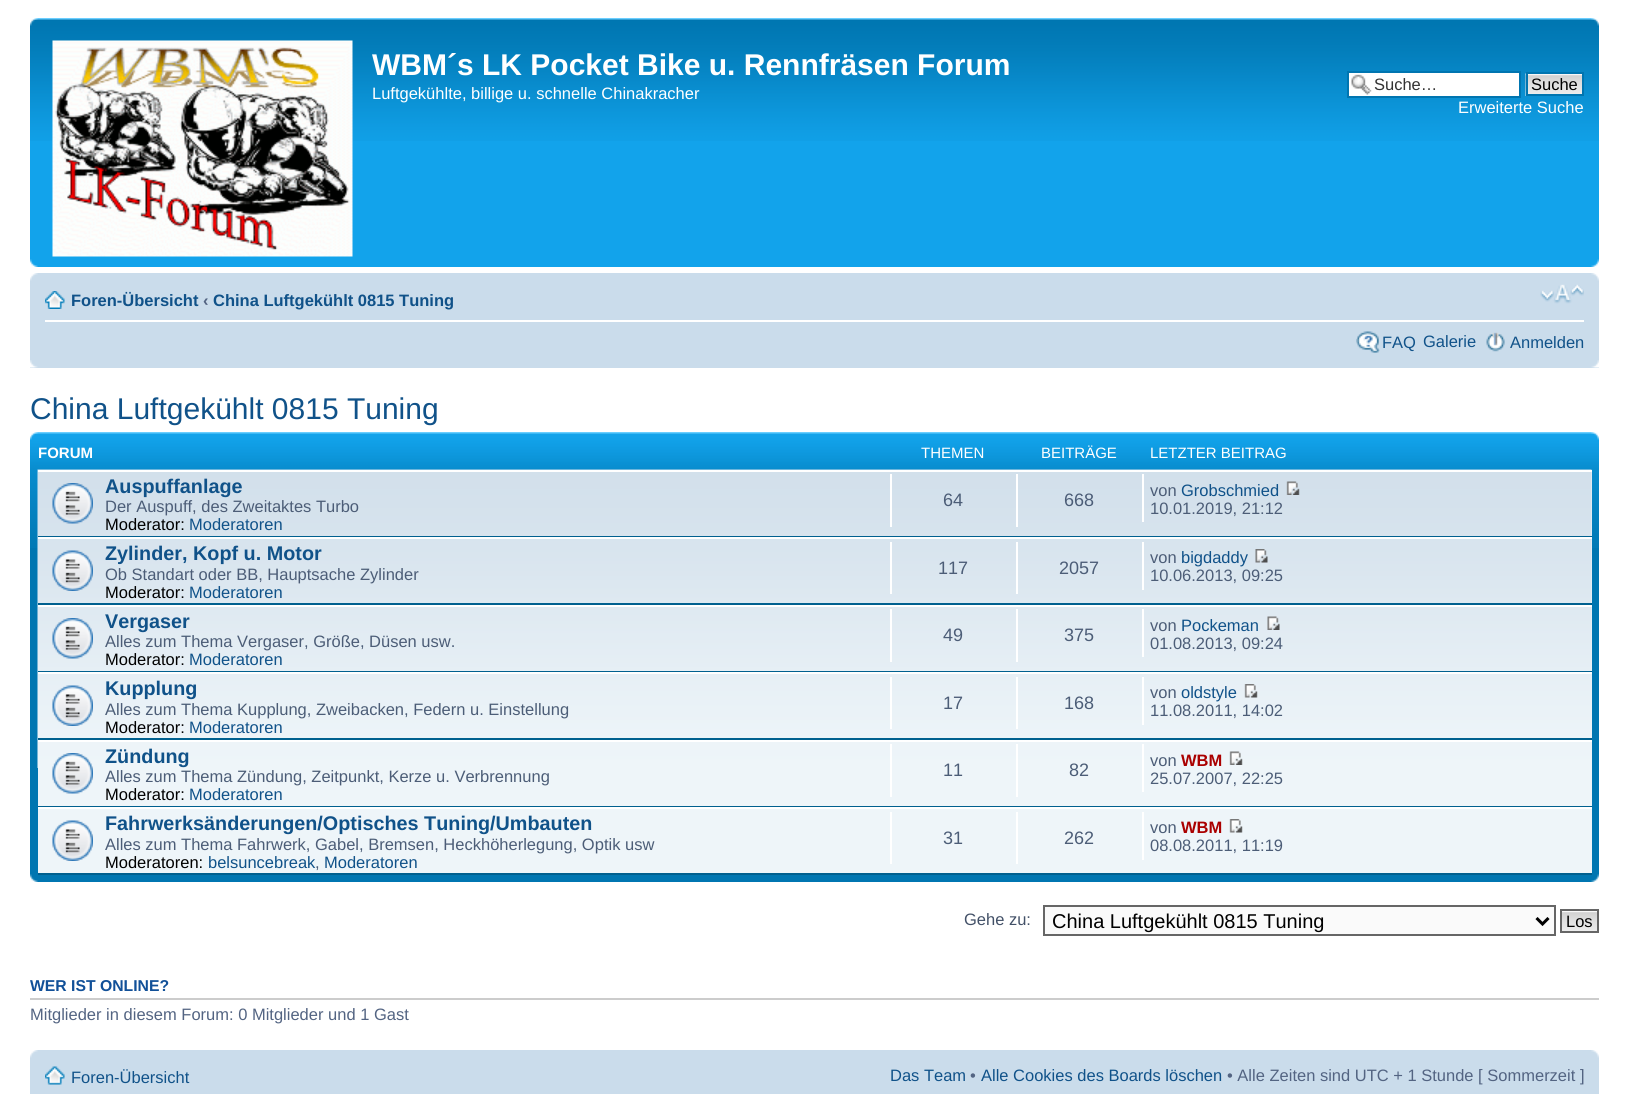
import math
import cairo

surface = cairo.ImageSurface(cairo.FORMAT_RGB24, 1628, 1094)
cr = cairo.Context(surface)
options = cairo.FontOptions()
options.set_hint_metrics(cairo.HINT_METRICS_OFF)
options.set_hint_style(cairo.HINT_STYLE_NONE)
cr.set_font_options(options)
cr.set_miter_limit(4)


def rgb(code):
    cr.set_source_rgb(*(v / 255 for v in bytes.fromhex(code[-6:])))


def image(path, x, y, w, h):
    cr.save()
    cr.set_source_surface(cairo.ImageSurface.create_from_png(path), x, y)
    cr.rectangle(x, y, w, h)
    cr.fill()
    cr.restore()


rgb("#ffffff")
cr.paint()
rgb("#12a3eb")
cr.rectangle(30, 141, 1569, 126)
cr.fill()
image("img/1.png", 30, 18, 1569, 123)
image("img/2.png", 30, 18, 8, 8)
image("img/3.png", 1591, 18, 8, 8)
image("img/4.png", 52, 40, 301, 217)
rgb("#ffffff")
cr.rectangle(1349, 73, 170, 23)
cr.fill()
image("img/5.png", 1351, 74, 21, 21)
cr.rectangle(1348, 72, 172, 25)
rgb("#0075b0")
cr.stroke()
image("img/6.png", 1525, 73, 57, 23)
cr.rectangle(1527, 73, 56, 22)
cr.stroke()
image("img/7.png", 30, 259, 8, 8)
image("img/8.png", 1591, 259, 8, 8)
rgb("#cadceb")
cr.rectangle(30, 273, 1569, 95)
cr.fill()
image("img/9.png", 30, 273, 8, 8)
image("img/10.png", 1591, 273, 8, 8)
rgb("#ffffff")
cr.rectangle(45, 320, 1539, 2)
cr.fill()
image("img/11.png", 45, 291, 20, 18)
image("img/12.png", 1540, 284, 44, 20)
image("img/13.png", 1356, 331, 24, 22)
image("img/14.png", 1486, 332, 19, 20)
image("img/15.png", 30, 360, 8, 8)
image("img/16.png", 1591, 360, 8, 8)
rgb("#0076b1")
cr.rectangle(30, 548, 1569, 334)
cr.fill()
image("img/17.png", 30, 432, 1569, 116)
image("img/18.png", 30, 432, 8, 8)
image("img/19.png", 1591, 432, 8, 8)
rgb("#eef5f9")
cr.rectangle(38, 472, 1554, 401)
cr.fill()
image("img/20.png", 37, 469, 1555, 299)
rgb("#ffffff")
cr.rectangle(38, 470, 1554, 2)
cr.fill()
rgb("#00608f")
cr.rectangle(38, 536, 1554, 1)
cr.fill()
image("img/21.png", 52, 483, 41, 41)
for x, y, w, h, color in [
    (890, 474, 2, 53, "#ffffff"),
    (1016, 474, 2, 53, "#ffffff"),
    (1142, 474, 2, 48, "#ffffff"),
]:
    rgb(color)
    cr.rectangle(x, y, w, h)
    cr.fill()
image("img/22.png", 1286, 481, 14, 14)
cr.rectangle(38, 537, 1554, 2)
cr.fill()
rgb("#00608f")
cr.rectangle(38, 603, 1554, 2)
cr.fill()
image("img/23.png", 52, 550, 41, 41)
for x, y, w, h, color in [
    (890, 542, 2, 52, "#ffffff"),
    (1016, 542, 2, 52, "#ffffff"),
    (1142, 542, 2, 48, "#ffffff"),
]:
    rgb(color)
    cr.rectangle(x, y, w, h)
    cr.fill()
image("img/24.png", 1255, 549, 13, 14)
cr.rectangle(38, 605, 1554, 2)
cr.fill()
rgb("#00608f")
cr.rectangle(38, 671, 1554, 1)
cr.fill()
image("img/25.png", 52, 618, 41, 41)
for x, y, w, h, color in [
    (890, 609, 2, 53, "#ffffff"),
    (1016, 609, 2, 53, "#ffffff"),
    (1142, 609, 2, 48, "#ffffff"),
]:
    rgb(color)
    cr.rectangle(x, y, w, h)
    cr.fill()
image("img/26.png", 1267, 616, 13, 14)
cr.rectangle(38, 672, 1554, 2)
cr.fill()
rgb("#00608f")
cr.rectangle(38, 738, 1554, 2)
cr.fill()
image("img/27.png", 52, 685, 41, 41)
for x, y, w, h, color in [
    (890, 677, 2, 52, "#ffffff"),
    (1016, 677, 2, 52, "#ffffff"),
    (1142, 677, 2, 48, "#ffffff"),
]:
    rgb(color)
    cr.rectangle(x, y, w, h)
    cr.fill()
image("img/28.png", 1244, 684, 14, 14)
cr.rectangle(38, 740, 1554, 2)
cr.fill()
rgb("#00608f")
cr.rectangle(38, 806, 1554, 1)
cr.fill()
image("img/29.png", 52, 753, 41, 41)
for x, y, w, h, color in [
    (890, 744, 2, 53, "#ffffff"),
    (1016, 744, 2, 53, "#ffffff"),
    (1142, 744, 2, 48, "#ffffff"),
]:
    rgb(color)
    cr.rectangle(x, y, w, h)
    cr.fill()
image("img/30.png", 1229, 751, 14, 14)
cr.rectangle(38, 807, 1554, 2)
cr.fill()
rgb("#00608f")
cr.rectangle(38, 873, 1554, 2)
cr.fill()
image("img/31.png", 52, 820, 41, 41)
for x, y, w, h, color in [
    (890, 812, 2, 52, "#ffffff"),
    (1016, 812, 2, 52, "#ffffff"),
    (1142, 812, 2, 48, "#ffffff"),
]:
    rgb(color)
    cr.rectangle(x, y, w, h)
    cr.fill()
image("img/32.png", 1229, 819, 14, 14)
image("img/33.png", 30, 874, 8, 8)
image("img/34.png", 1591, 874, 8, 8)
rgb("#fafafa")
cr.rectangle(1044, 906, 511, 29)
cr.fill_preserve()
rgb("#666666")
cr.stroke()
cr.new_path()
cr.move_to(1536.5, 918)
cr.line_to(1542.5, 924)
cr.line_to(1548.5, 918)
rgb("#000000")
cr.set_line_width(3)
cr.stroke()
rgb("#fafafa")
cr.rectangle(1562, 911, 35, 1)
cr.fill()
image("img/35.png", 1562, 912, 35, 19)
cr.rectangle(1561, 910, 37, 22)
rgb("#666666")
cr.set_line_width(2)
cr.stroke()
rgb("#cccccc")
cr.rectangle(30, 998, 1569, 2)
cr.fill()
rgb("#cadceb")
cr.rectangle(30, 1050, 1569, 44)
cr.fill()
image("img/9.png", 30, 1050, 8, 8)
image("img/10.png", 1591, 1050, 8, 8)
image("img/36.png", 45, 1066, 20, 19)
cr.select_font_face("Liberation Sans", cairo.FONT_SLANT_NORMAL, cairo.FONT_WEIGHT_BOLD)
cr.set_font_size(30)
rgb("#ffffff")
cr.move_to(372, 75)
cr.show_text("WBM´s LK Pocket Bike u. Rennfräsen Forum")
cr.select_font_face("Liberation Sans")
cr.set_font_size(16.5)
cr.move_to(372, 99)
cr.show_text("Luftgekühlte, billige u. schnelle Chinakracher")
rgb("#333333")
cr.move_to(1374, 90)
cr.show_text("Suche…")
rgb("#000000")
cr.move_to(1531, 90)
cr.show_text("Suche")
rgb("#ffffff")
cr.move_to(1458, 113)
cr.show_text("Erweiterte Suche")
cr.select_font_face("Liberation Sans", cairo.FONT_SLANT_NORMAL, cairo.FONT_WEIGHT_BOLD)
rgb("#105289")
cr.move_to(71, 306)
cr.show_text("Foren-Übersicht")
rgb("#536482")
cr.move_to(203, 306)
cr.show_text("‹")
rgb("#105289")
cr.move_to(213, 306)
cr.show_text("China Luftgekühlt 0815 Tuning")
cr.select_font_face("Liberation Sans")
for x, y, s in [
    (1382, 348, "FAQ"),
    (1423, 347, "Galerie"),
    (1510, 348, "Anmelden"),
]:
    cr.move_to(x, y)
    cr.show_text(s)
cr.set_font_size(30)
cr.move_to(30, 419)
cr.show_text("China Luftgekühlt 0815 Tuning")
cr.select_font_face("Liberation Sans", cairo.FONT_SLANT_NORMAL, cairo.FONT_WEIGHT_BOLD)
cr.set_font_size(15)
rgb("#ffffff")
cr.move_to(38, 458)
cr.show_text("FORUM")
cr.select_font_face("Liberation Sans")
for x, y, s in [
    (921, 458, "THEMEN"),
    (1041, 458, "BEITRÄGE"),
    (1150, 458, "LETZTER BEITRAG"),
]:
    cr.move_to(x, y)
    cr.show_text(s)
cr.select_font_face("Liberation Sans", cairo.FONT_SLANT_NORMAL, cairo.FONT_WEIGHT_BOLD)
cr.set_font_size(19.8)
rgb("#105289")
cr.move_to(105, 493)
cr.show_text("Auspuffanlage")
cr.select_font_face("Liberation Sans")
cr.set_font_size(16.5)
rgb("#4c5d77")
cr.move_to(105, 512)
cr.show_text("Der Auspuff, des Zweitaktes Turbo")
rgb("#000000")
cr.move_to(105, 530)
cr.show_text("Moderator:")
rgb("#105289")
cr.move_to(189, 530)
cr.show_text("Moderatoren")
cr.set_font_size(18)
rgb("#4c5d77")
cr.move_to(943, 506)
cr.show_text("64")
cr.move_to(1064, 506)
cr.show_text("668")
cr.set_font_size(16.5)
cr.move_to(1150, 496)
cr.show_text("von")
rgb("#105289")
cr.move_to(1181, 496)
cr.show_text("Grobschmied")
rgb("#4c5d77")
cr.move_to(1150, 514)
cr.show_text("10.01.2019, 21:12")
cr.select_font_face("Liberation Sans", cairo.FONT_SLANT_NORMAL, cairo.FONT_WEIGHT_BOLD)
cr.set_font_size(19.8)
rgb("#105289")
cr.move_to(105, 560)
cr.show_text("Zylinder, Kopf u. Motor")
cr.select_font_face("Liberation Sans")
cr.set_font_size(16.5)
rgb("#4c5d77")
cr.move_to(105, 580)
cr.show_text("Ob Standart oder BB, Hauptsache Zylinder")
rgb("#000000")
cr.move_to(105, 598)
cr.show_text("Moderator:")
rgb("#105289")
cr.move_to(189, 598)
cr.show_text("Moderatoren")
cr.set_font_size(18)
rgb("#4c5d77")
cr.move_to(938, 574)
cr.show_text("117")
cr.move_to(1059, 574)
cr.show_text("2057")
cr.set_font_size(16.5)
cr.move_to(1150, 563)
cr.show_text("von")
rgb("#105289")
cr.move_to(1181, 563)
cr.show_text("bigdaddy")
rgb("#4c5d77")
cr.move_to(1150, 581)
cr.show_text("10.06.2013, 09:25")
cr.select_font_face("Liberation Sans", cairo.FONT_SLANT_NORMAL, cairo.FONT_WEIGHT_BOLD)
cr.set_font_size(19.8)
rgb("#105289")
cr.move_to(105, 628)
cr.show_text("Vergaser")
cr.select_font_face("Liberation Sans")
cr.set_font_size(16.5)
rgb("#4c5d77")
cr.move_to(105, 647)
cr.show_text("Alles zum Thema Vergaser, Größe, Düsen usw.")
rgb("#000000")
cr.move_to(105, 665)
cr.show_text("Moderator:")
rgb("#105289")
cr.move_to(189, 665)
cr.show_text("Moderatoren")
cr.set_font_size(18)
rgb("#4c5d77")
cr.move_to(943, 641)
cr.show_text("49")
cr.move_to(1064, 641)
cr.show_text("375")
cr.set_font_size(16.5)
cr.move_to(1150, 631)
cr.show_text("von")
rgb("#105289")
cr.move_to(1181, 631)
cr.show_text("Pockeman")
rgb("#4c5d77")
cr.move_to(1150, 649)
cr.show_text("01.08.2013, 09:24")
cr.select_font_face("Liberation Sans", cairo.FONT_SLANT_NORMAL, cairo.FONT_WEIGHT_BOLD)
cr.set_font_size(19.8)
rgb("#105289")
cr.move_to(105, 695)
cr.show_text("Kupplung")
cr.select_font_face("Liberation Sans")
cr.set_font_size(16.5)
rgb("#4c5d77")
cr.move_to(105, 715)
cr.show_text("Alles zum Thema Kupplung, Zweibacken, Federn u. Einstellung")
rgb("#000000")
cr.move_to(105, 733)
cr.show_text("Moderator:")
rgb("#105289")
cr.move_to(189, 733)
cr.show_text("Moderatoren")
cr.set_font_size(18)
rgb("#4c5d77")
cr.move_to(943, 709)
cr.show_text("17")
cr.move_to(1064, 709)
cr.show_text("168")
cr.set_font_size(16.5)
cr.move_to(1150, 698)
cr.show_text("von")
rgb("#105289")
cr.move_to(1181, 698)
cr.show_text("oldstyle")
rgb("#4c5d77")
cr.move_to(1150, 716)
cr.show_text("11.08.2011, 14:02")
cr.select_font_face("Liberation Sans", cairo.FONT_SLANT_NORMAL, cairo.FONT_WEIGHT_BOLD)
cr.set_font_size(19.8)
rgb("#105289")
cr.move_to(105, 763)
cr.show_text("Zündung")
cr.select_font_face("Liberation Sans")
cr.set_font_size(16.5)
rgb("#4c5d77")
cr.move_to(105, 782)
cr.show_text("Alles zum Thema Zündung, Zeitpunkt, Kerze u. Verbrennung")
rgb("#000000")
cr.move_to(105, 800)
cr.show_text("Moderator:")
rgb("#105289")
cr.move_to(189, 800)
cr.show_text("Moderatoren")
cr.set_font_size(18)
rgb("#4c5d77")
cr.move_to(943, 776)
cr.show_text("11")
cr.move_to(1069, 776)
cr.show_text("82")
cr.set_font_size(16.5)
cr.move_to(1150, 766)
cr.show_text("von")
cr.select_font_face("Liberation Sans", cairo.FONT_SLANT_NORMAL, cairo.FONT_WEIGHT_BOLD)
rgb("#aa0000")
cr.move_to(1181, 766)
cr.show_text("WBM")
cr.select_font_face("Liberation Sans")
rgb("#4c5d77")
cr.move_to(1150, 784)
cr.show_text("25.07.2007, 22:25")
cr.select_font_face("Liberation Sans", cairo.FONT_SLANT_NORMAL, cairo.FONT_WEIGHT_BOLD)
cr.set_font_size(19.8)
rgb("#105289")
cr.move_to(105, 830)
cr.show_text("Fahrwerksänderungen/Optisches Tuning/Umbauten")
cr.select_font_face("Liberation Sans")
cr.set_font_size(16.5)
rgb("#4c5d77")
cr.move_to(105, 850)
cr.show_text("Alles zum Thema Fahrwerk, Gabel, Bremsen, Heckhöherlegung, Optik usw")
rgb("#000000")
cr.move_to(105, 868)
cr.show_text("Moderatoren:")
rgb("#105289")
cr.move_to(208, 868)
cr.show_text("belsuncebreak")
rgb("#4c5d77")
cr.move_to(315, 868)
cr.show_text(",")
rgb("#105289")
cr.move_to(324, 868)
cr.show_text("Moderatoren")
cr.set_font_size(18)
rgb("#4c5d77")
cr.move_to(943, 844)
cr.show_text("31")
cr.move_to(1064, 844)
cr.show_text("262")
cr.set_font_size(16.5)
cr.move_to(1150, 833)
cr.show_text("von")
cr.select_font_face("Liberation Sans", cairo.FONT_SLANT_NORMAL, cairo.FONT_WEIGHT_BOLD)
rgb("#aa0000")
cr.move_to(1181, 833)
cr.show_text("WBM")
cr.select_font_face("Liberation Sans")
rgb("#4c5d77")
cr.move_to(1150, 851)
cr.show_text("08.08.2011, 11:19")
rgb("#425067")
cr.move_to(964, 925)
cr.show_text("Gehe zu:")
cr.set_font_size(20)
rgb("#000000")
cr.move_to(1052, 928)
cr.show_text("China Luftgekühlt 0815 Tuning")
cr.set_font_size(16.5)
cr.move_to(1566, 927)
cr.show_text("Los")
cr.select_font_face("Liberation Sans", cairo.FONT_SLANT_NORMAL, cairo.FONT_WEIGHT_BOLD)
cr.set_font_size(15.75)
rgb("#115098")
cr.move_to(30, 991)
cr.show_text("WER IST ONLINE?")
cr.select_font_face("Liberation Sans")
cr.set_font_size(16.5)
rgb("#536482")
cr.move_to(30, 1020)
cr.show_text("Mitglieder in diesem Forum: 0 Mitglieder und 1 Gast")
rgb("#105289")
cr.move_to(71, 1083)
cr.show_text("Foren-Übersicht")
cr.move_to(890, 1081)
cr.show_text("Das Team")
rgb("#536482")
cr.move_to(970, 1081)
cr.show_text("•")
rgb("#105289")
cr.move_to(981, 1081)
cr.show_text("Alle Cookies des Boards löschen")
rgb("#536482")
cr.move_to(1227, 1081)
cr.show_text("• Alle Zeiten sind UTC + 1 Stunde [ Sommerzeit ]")
surface.write_to_png("page.png")
